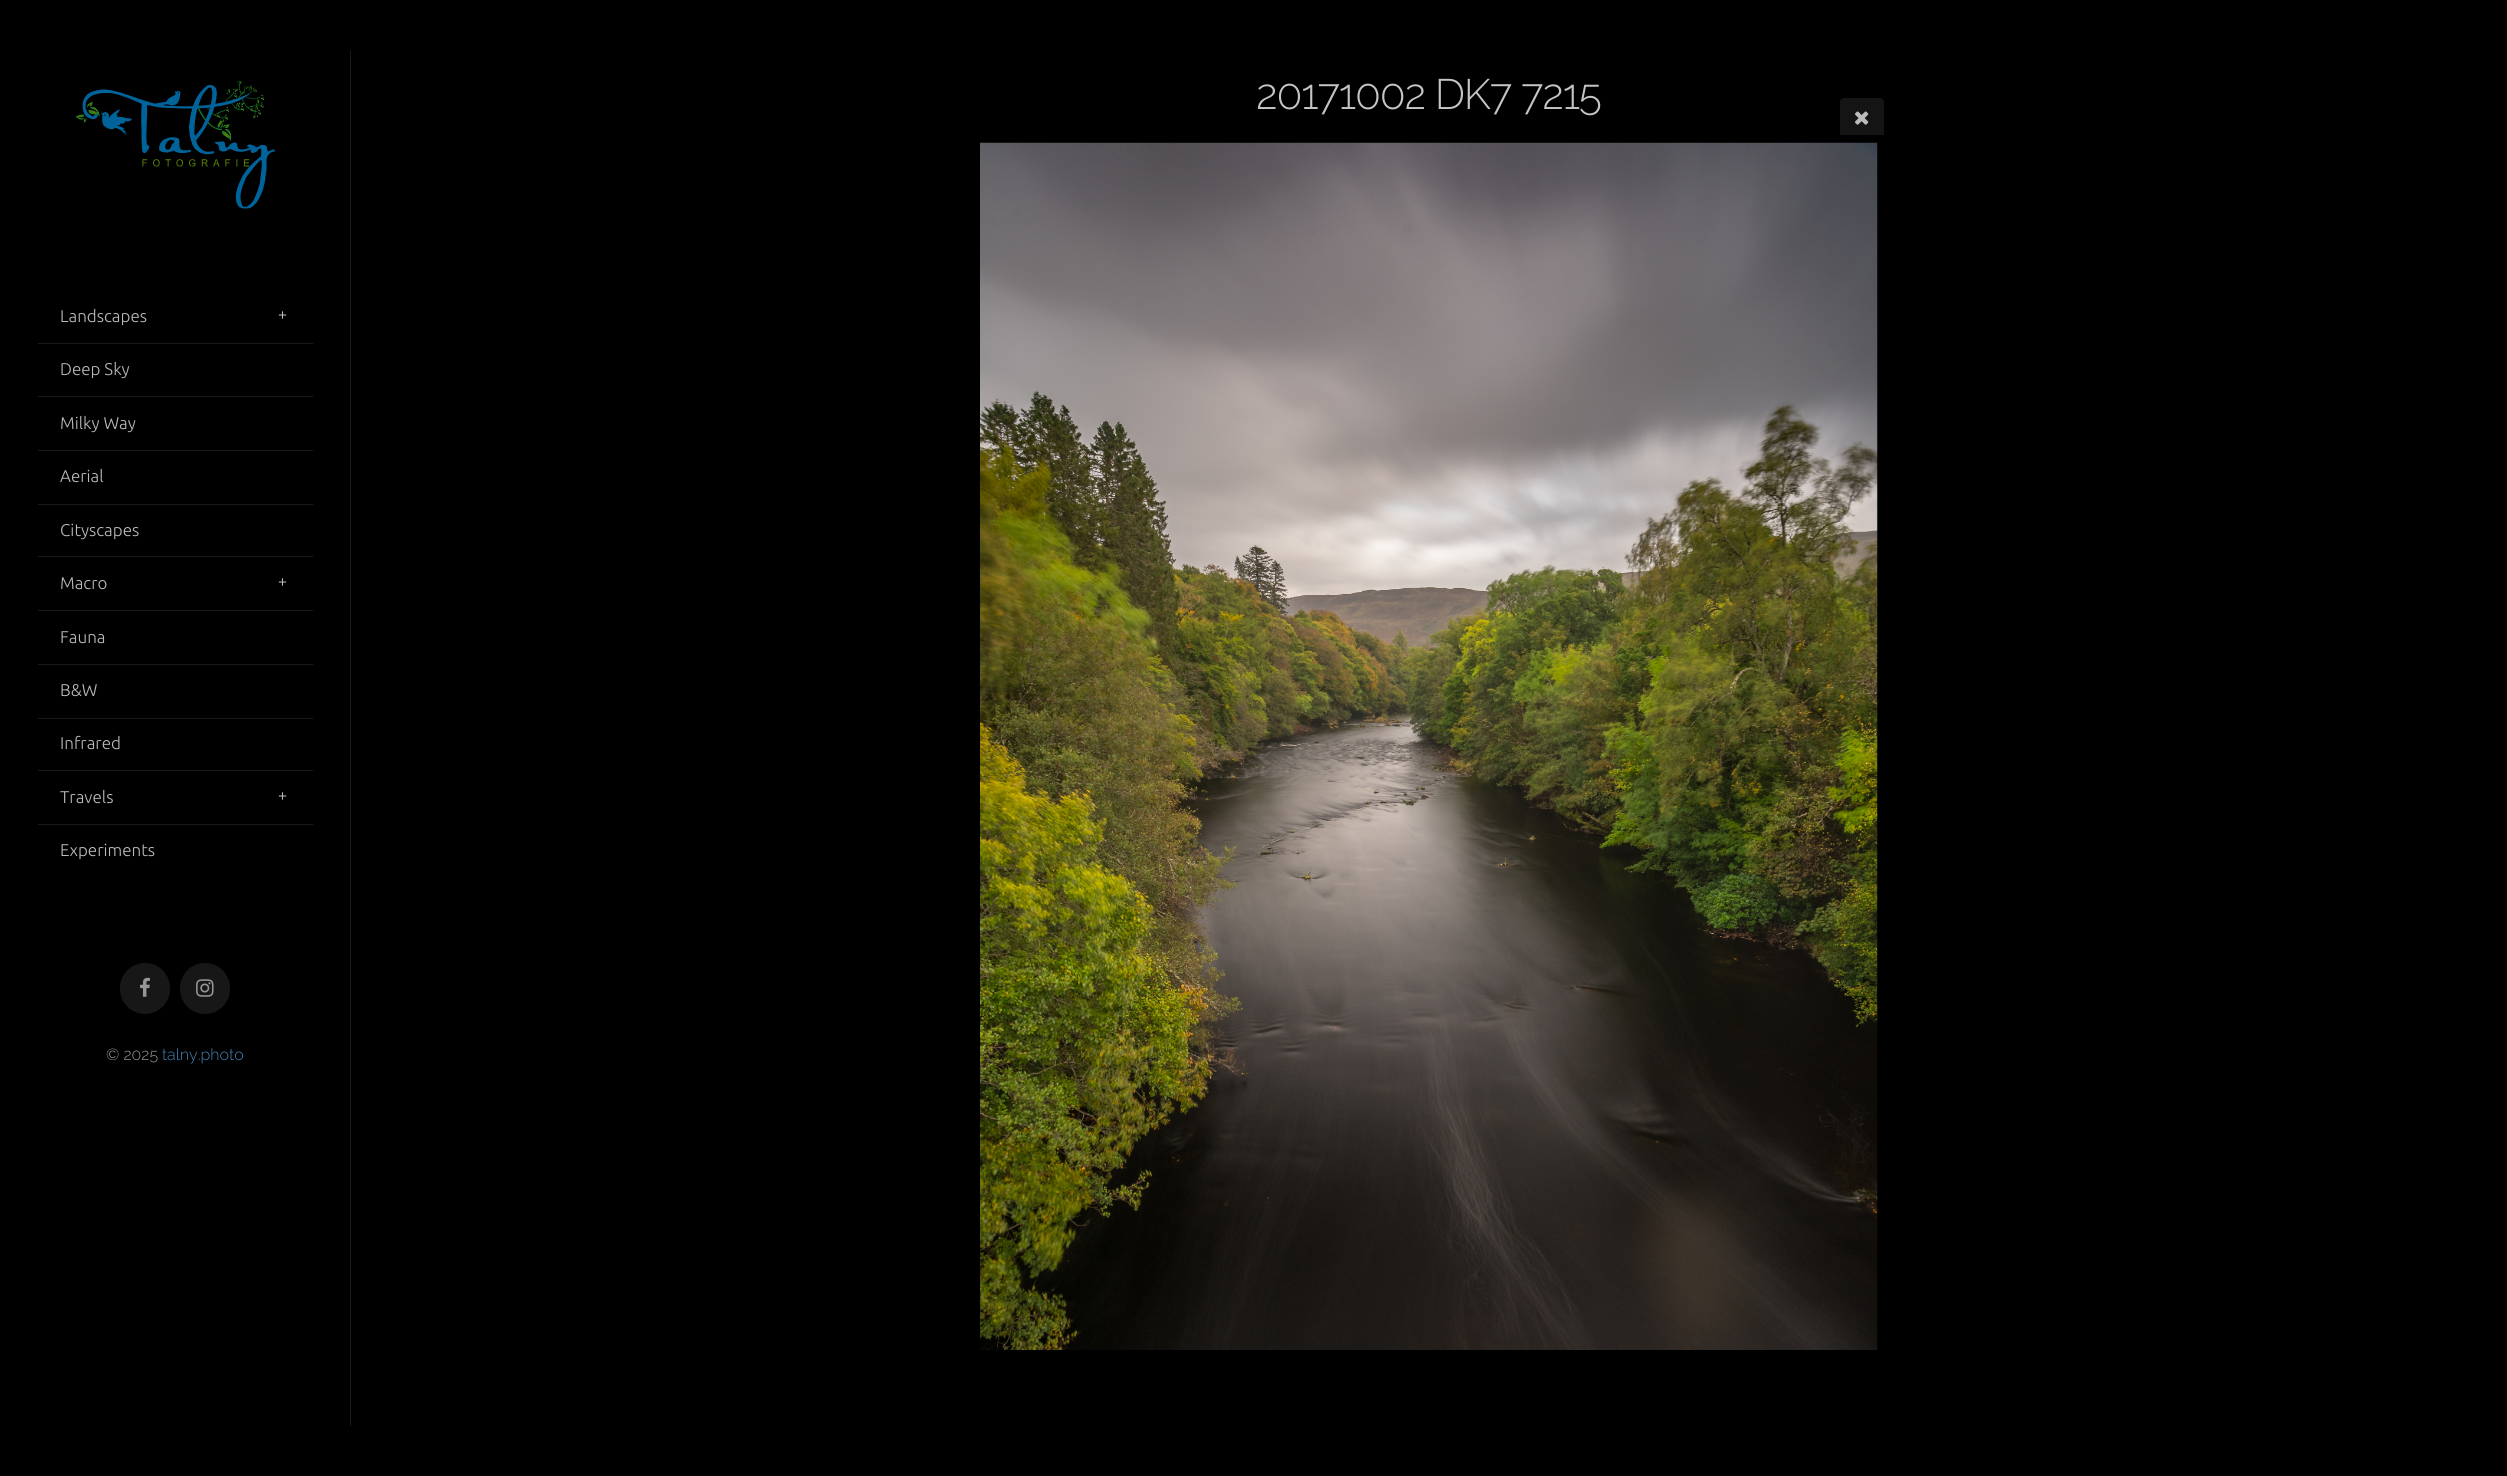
import math
import cairo

surface = cairo.ImageSurface(cairo.FORMAT_RGB24, 2507, 1476)
cr = cairo.Context(surface)
options = cairo.FontOptions()
options.set_hint_metrics(cairo.HINT_METRICS_OFF)
options.set_hint_style(cairo.HINT_STYLE_NONE)
cr.set_font_options(options)
cr.set_miter_limit(4)


def rgb(code):
    cr.set_source_rgb(*(v / 255 for v in bytes.fromhex(code[-6:])))


def tracked(x, y, s, letter, word):
    cr.move_to(x, y)
    for ch in s:
        cr.show_text(ch)
        cr.rel_move_to(letter + word * (ch == ' '), 0)


def rrect(x, y, w, h, r):
    cr.new_sub_path()
    for i, (u, v) in enumerate([(x + w - r, y + h - r), (x + r, y + h - r), (x + r, y + r), (x + w - r, y + r)]):
        cr.arc(u, v, r, i * math.pi / 2, (i + 1) * math.pi / 2)
    cr.close_path()


def image(path, x, y, w, h):
    cr.save()
    cr.set_source_surface(cairo.ImageSurface.create_from_png(path), x, y)
    cr.rectangle(x, y, w, h)
    cr.fill()
    cr.restore()


rgb("#000000")
cr.paint()
rgb("#141414")
cr.new_path()
cr.move_to(1844, 98)
cr.line_to(1880, 98)
cr.curve_to(1882, 98, 1884, 100, 1884, 102)
cr.line_to(1884, 135)
cr.line_to(1840, 135)
cr.line_to(1840, 102)
cr.curve_to(1840, 100, 1842, 98, 1844, 98)
cr.close_path()
cr.fill()
image("img/1.png", 1855, 111, 14, 14)
image("img/2.png", 980, 142, 898, 1208)
image("img/3.png", 75, 80, 200, 129)
for x, y, w, h, color in [
    (38, 343, 275, 1, "#1a1a1a"),
    (38, 396, 275, 1, "#1a1a1a"),
    (38, 450, 275, 1, "#1a1a1a"),
    (38, 504, 275, 1, "#1a1a1a"),
    (38, 556, 275, 1, "#1a1a1a"),
    (38, 610, 275, 1, "#1a1a1a"),
    (38, 664, 275, 1, "#1a1a1a"),
    (38, 718, 275, 1, "#1a1a1a"),
    (38, 770, 275, 1, "#1a1a1a"),
    (38, 824, 275, 1, "#1a1a1a"),
]:
    rgb(color)
    cr.rectangle(x, y, w, h)
    cr.fill()
rgb("#171717")
rrect(120, 963, 50, 51, 25)
cr.fill()
image("img/4.png", 140, 977, 10, 20)
rrect(180, 963, 50, 51, 25)
cr.fill()
image("img/5.png", 196, 979, 18, 18)
rgb("#1a1a1a")
cr.rectangle(350, 50, 1, 1376)
cr.fill()
cr.select_font_face("Raleway Thin")
cr.set_font_size(42.5)
rgb("#c5c5c5")
tracked(1256, 109, "20171002 DK7 7215", -1.2, 0)
cr.select_font_face("Ubuntu Light")
cr.set_font_size(17)
rgb("#bbbbbb")
cr.move_to(60, 322)
cr.show_text("Landscapes")
cr.select_font_face("Liberation Mono")
cr.set_font_size(15)
cr.move_to(278, 320)
cr.show_text("+")
cr.select_font_face("Ubuntu Light")
cr.set_font_size(17)
for x, y, s in [
    (60, 375, "Deep Sky"),
    (60, 429, "Milky Way"),
    (60, 482, "Aerial"),
    (60, 536, "Cityscapes"),
    (60, 589, "Macro"),
]:
    cr.move_to(x, y)
    cr.show_text(s)
cr.select_font_face("Liberation Mono")
cr.set_font_size(15)
cr.move_to(278, 587)
cr.show_text("+")
cr.select_font_face("Ubuntu Light")
cr.set_font_size(17)
for x, y, s in [
    (60, 643, "Fauna"),
    (60, 696, "B&W"),
    (60, 749, "Infrared"),
    (60, 803, "Travels"),
]:
    cr.move_to(x, y)
    cr.show_text(s)
cr.select_font_face("Liberation Mono")
cr.set_font_size(15)
cr.move_to(278, 801)
cr.show_text("+")
cr.select_font_face("Ubuntu Light")
cr.set_font_size(17)
cr.move_to(60, 856)
cr.show_text("Experiments")
cr.select_font_face("Raleway Thin")
cr.set_font_size(16)
rgb("#969696")
cr.move_to(106, 1060)
cr.show_text("© 2025")
rgb("#4682b4")
cr.move_to(162, 1060)
cr.show_text("talny.photo")
surface.write_to_png("page.png")
